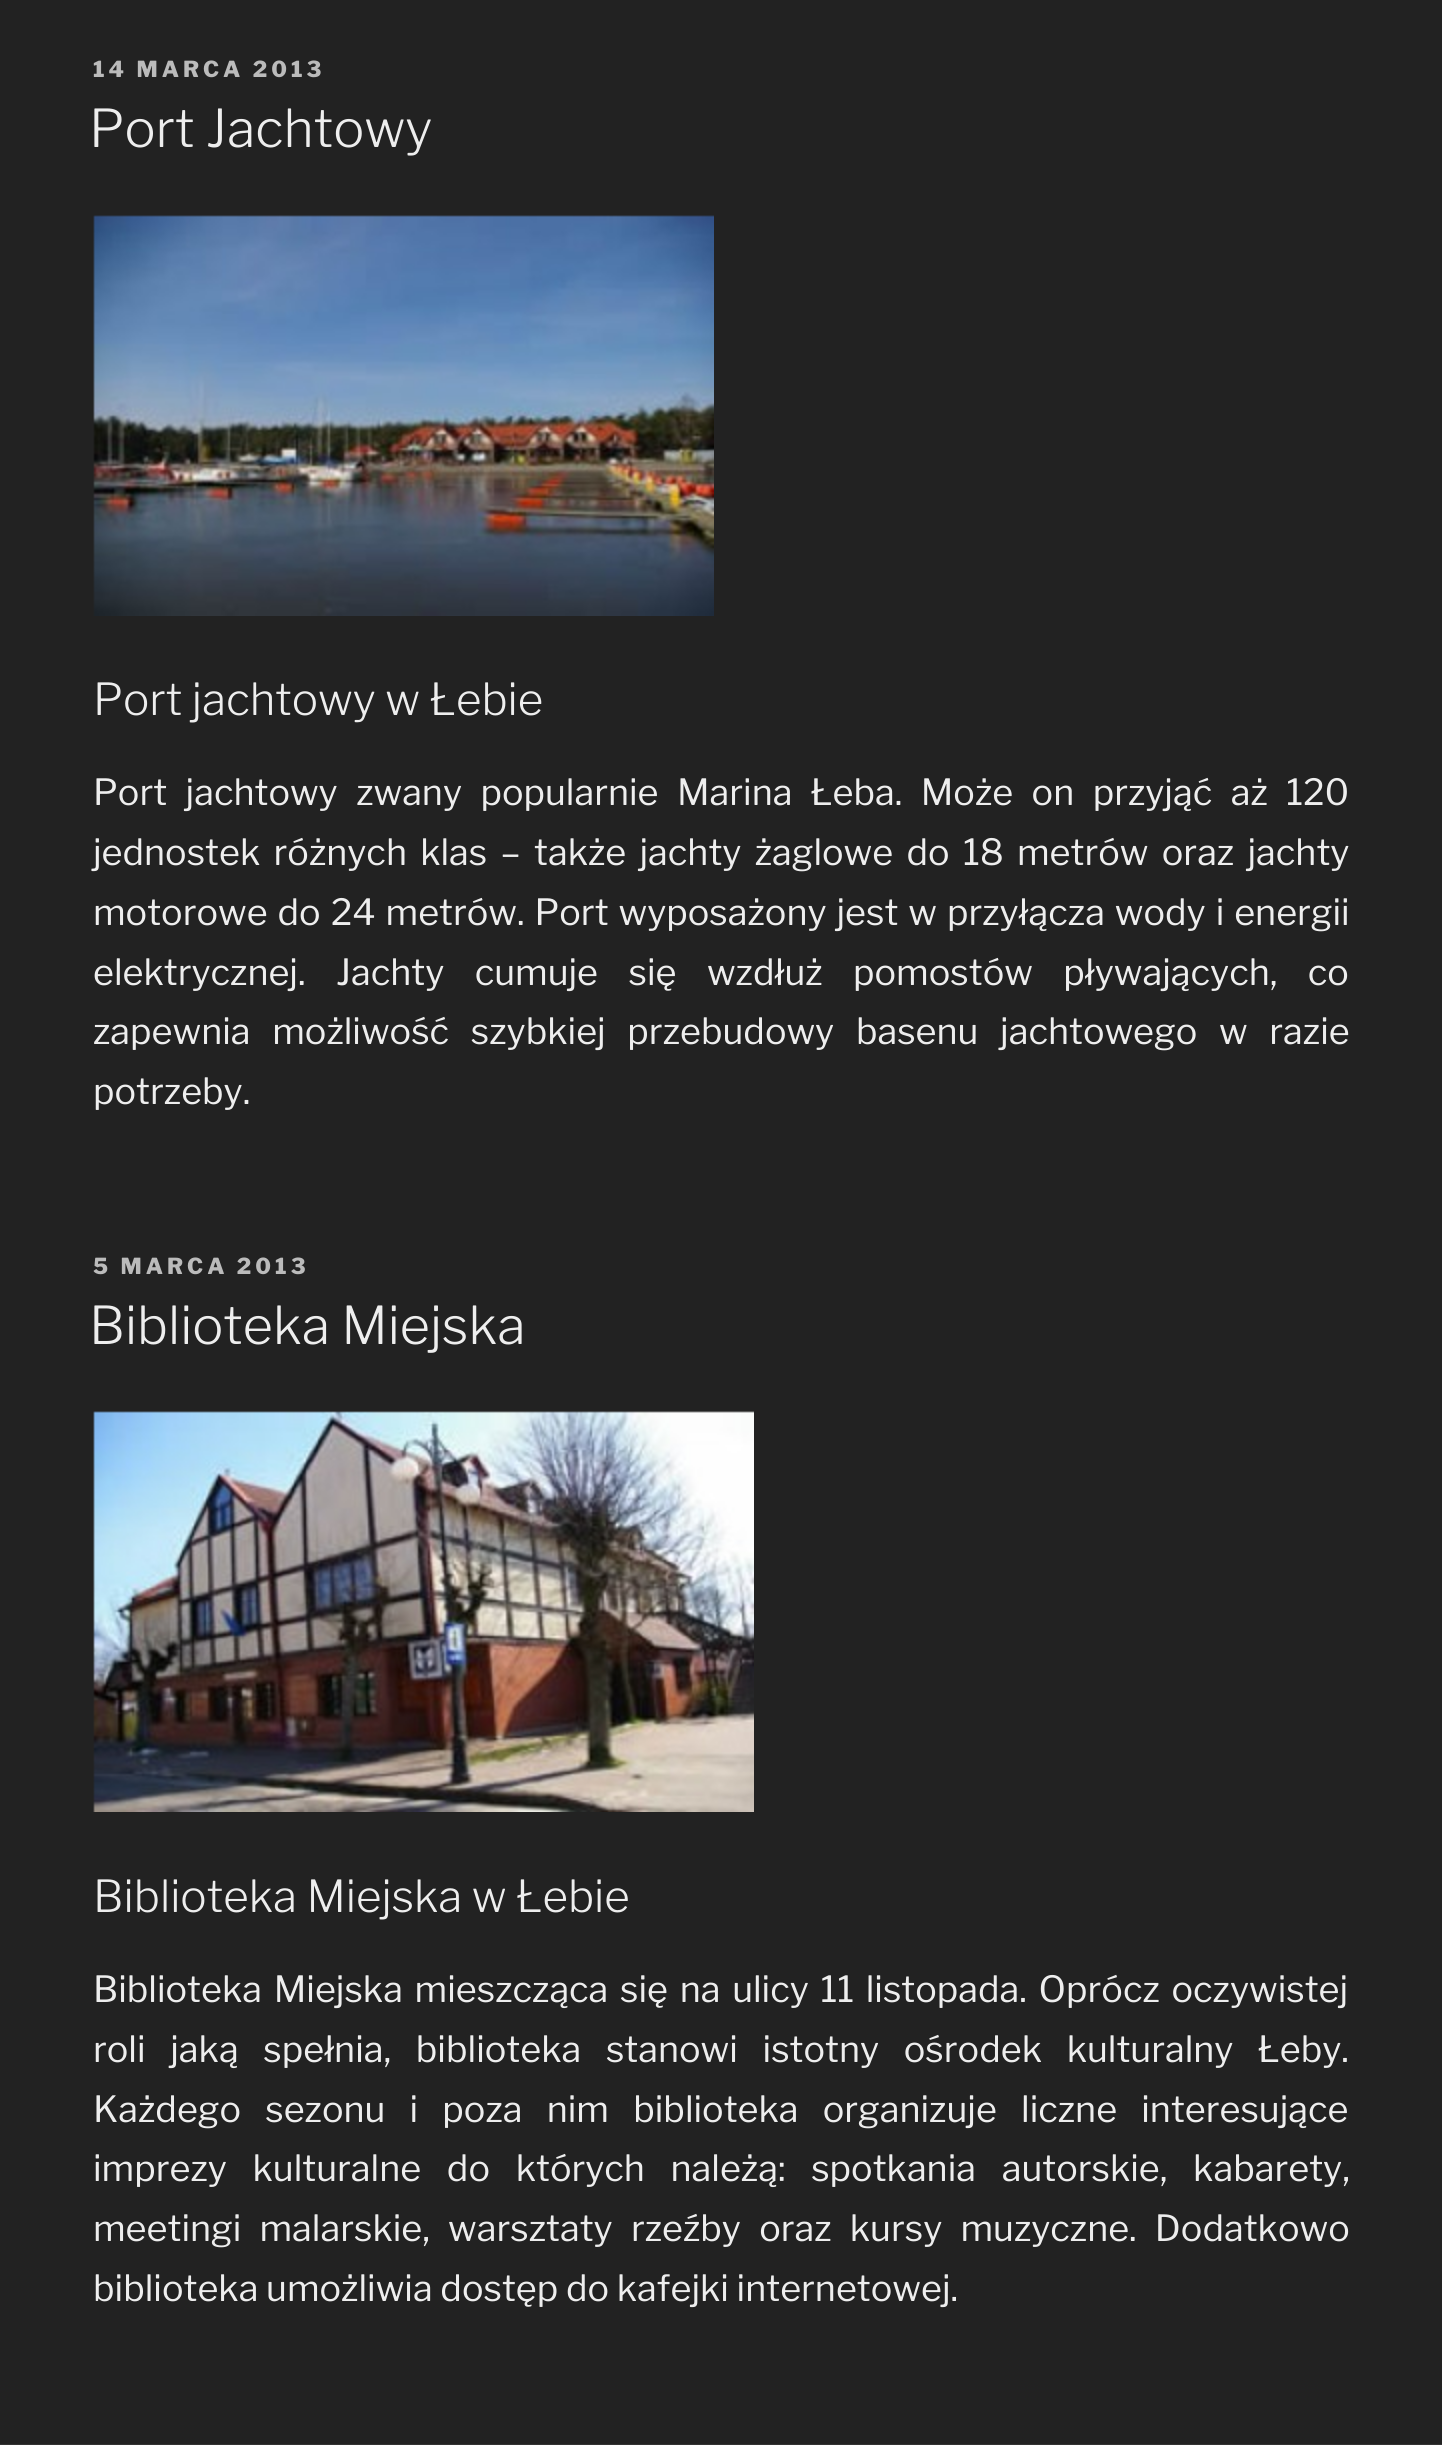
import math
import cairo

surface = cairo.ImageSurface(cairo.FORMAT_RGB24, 1442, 2445)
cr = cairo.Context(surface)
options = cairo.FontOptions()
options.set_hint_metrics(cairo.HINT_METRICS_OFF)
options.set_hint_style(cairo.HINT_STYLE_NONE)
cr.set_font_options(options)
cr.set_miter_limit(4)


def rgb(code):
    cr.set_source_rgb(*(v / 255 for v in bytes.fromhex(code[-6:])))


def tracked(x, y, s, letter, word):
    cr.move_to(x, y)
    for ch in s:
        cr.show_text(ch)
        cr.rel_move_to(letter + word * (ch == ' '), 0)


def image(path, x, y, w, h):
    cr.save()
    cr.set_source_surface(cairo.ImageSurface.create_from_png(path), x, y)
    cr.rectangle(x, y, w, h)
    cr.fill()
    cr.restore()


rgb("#222222")
cr.paint()
image("img/1.png", 93, 215, 621, 401)
image("img/2.png", 93, 1411, 661, 401)
rgb("#333333")
cr.rectangle(0, 2444, 1442, 1)
cr.fill()
cr.select_font_face("Libre Franklin Thin")
cr.set_font_size(22)
rgb("#bbbbbb")
tracked(93, 77, "14 MARCA 2013", 4, 0)
cr.select_font_face("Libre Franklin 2 Thin")
cr.set_font_size(52)
rgb("#eeeeee")
cr.move_to(89, 147)
cr.show_text("Port Jachtowy")
cr.set_font_size(44)
cr.move_to(93, 715)
cr.show_text("Port jachtowy w Łebie")
cr.select_font_face("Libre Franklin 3 Thin")
cr.set_font_size(36)
tracked(93, 805, "Port jachtowy zwany popularnie Marina Łeba. Może on przyjąć aż 120", 0, 10.75)
tracked(93, 865, "jednostek różnych klas – także jachty żaglowe do 18 metrów oraz jachty", 0, 5.6)
tracked(93, 925, "motorowe do 24 metrów. Port wyposażony jest w przyłącza wody i energii", 0, 2.25)
tracked(93, 985, "elektrycznej. Jachty cumuje się wzdłuż pomostów pływających, co", 0, 22.75)
tracked(93, 1044, "zapewnia możliwość szybkiej przebudowy basenu jachtowego w razie", 0, 14)
cr.move_to(93, 1104)
cr.show_text("potrzeby.")
cr.select_font_face("Libre Franklin Thin")
cr.set_font_size(22)
rgb("#bbbbbb")
tracked(93, 1274, "5 MARCA 2013", 4, 0)
cr.select_font_face("Libre Franklin 2 Thin")
cr.set_font_size(52)
rgb("#eeeeee")
cr.move_to(89, 1344)
cr.show_text("Biblioteka Miejska")
cr.set_font_size(44)
cr.move_to(93, 1912)
cr.show_text("Biblioteka Miejska w Łebie")
cr.select_font_face("Libre Franklin 3 Thin")
cr.set_font_size(36)
tracked(93, 2002, "Biblioteka Miejska mieszcząca się na ulicy 11 listopada. Oprócz oczywistej", 0, 4)
tracked(93, 2062, "roli jaką spełnia, biblioteka stanowi istotny ośrodek kulturalny Łeby.", 0, 17)
tracked(93, 2122, "Każdego sezonu i poza nim biblioteka organizuje liczne interesujące", 0, 16.5)
tracked(93, 2181, "imprezy kulturalne do których należą: spotkania autorskie, kabarety,", 0, 18)
tracked(93, 2241, "meetingi malarskie, warsztaty rzeźby oraz kursy muzyczne. Dodatkowo", 0, 10.5)
cr.move_to(93, 2301)
cr.show_text("biblioteka umożliwia dostęp do kafejki internetowej.")
surface.write_to_png("page.png")
